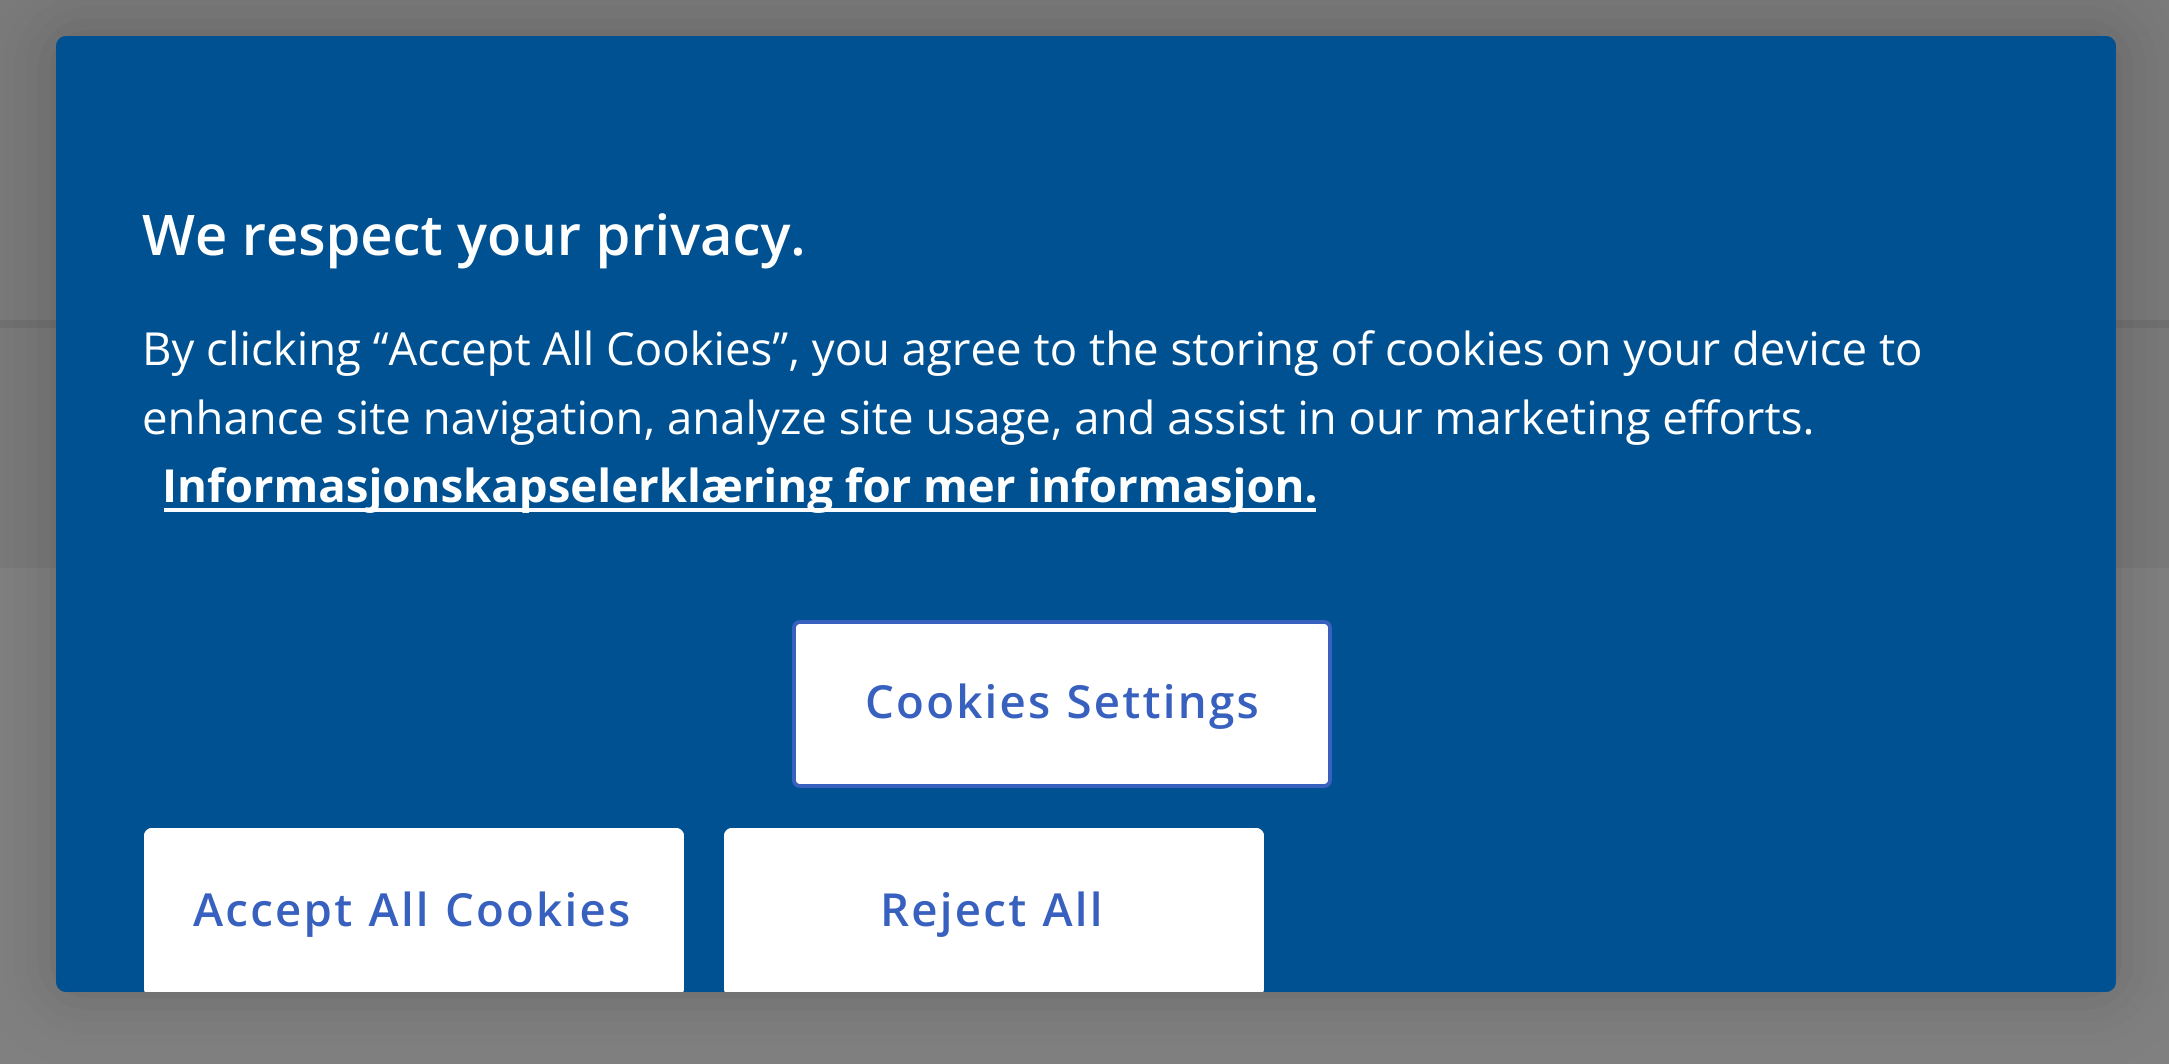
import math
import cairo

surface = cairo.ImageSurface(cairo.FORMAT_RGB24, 2169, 1064)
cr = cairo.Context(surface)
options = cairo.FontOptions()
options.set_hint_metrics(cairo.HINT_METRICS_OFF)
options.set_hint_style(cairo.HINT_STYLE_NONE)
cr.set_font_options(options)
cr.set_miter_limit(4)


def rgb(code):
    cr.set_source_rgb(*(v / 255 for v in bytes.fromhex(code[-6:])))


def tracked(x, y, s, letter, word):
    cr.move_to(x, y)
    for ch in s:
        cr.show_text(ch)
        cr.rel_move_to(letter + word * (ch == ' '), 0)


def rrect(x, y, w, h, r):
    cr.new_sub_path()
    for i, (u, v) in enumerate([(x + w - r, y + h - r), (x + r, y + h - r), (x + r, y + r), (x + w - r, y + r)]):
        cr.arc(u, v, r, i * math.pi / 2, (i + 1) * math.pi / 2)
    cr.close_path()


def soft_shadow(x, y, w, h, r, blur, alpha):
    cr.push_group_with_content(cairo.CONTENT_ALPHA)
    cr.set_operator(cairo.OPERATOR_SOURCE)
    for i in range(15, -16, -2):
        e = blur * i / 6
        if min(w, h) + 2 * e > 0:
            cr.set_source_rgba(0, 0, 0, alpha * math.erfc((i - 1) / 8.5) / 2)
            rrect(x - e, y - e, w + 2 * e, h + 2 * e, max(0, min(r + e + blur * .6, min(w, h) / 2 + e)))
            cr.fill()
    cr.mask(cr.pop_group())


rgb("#808080")
cr.paint()
for x, y, w, h, color in [
    (0, 0, 2169, 320, "#7a7a7a"),
    (0, 320, 2169, 8, "#717171"),
    (0, 328, 2169, 240, "#7a7a7a"),
]:
    rgb(color)
    cr.rectangle(x, y, w, h)
    cr.fill()
rgb("#000000")
soft_shadow(56, 36, 2060, 956, 10, 36, 0.2)
rgb("#005192")
rrect(56, 36, 2060, 956, 10)
cr.fill()
rgb("#fafbff")
cr.rectangle(164, 508, 1152, 4)
cr.fill()
rgb("#ffffff")
rrect(794, 622, 536, 164, 6)
cr.fill_preserve()
rgb("#3860be")
cr.set_line_width(4)
cr.stroke()
cr.save()
rrect(56, 36, 2060, 956, 10)
cr.clip()
rgb("#ffffff")
rrect(144, 828, 540, 168, 8)
cr.fill()
cr.restore()
rgb("#ffffff")
cr.new_path()
cr.move_to(152, 828)
cr.curve_to(148, 828, 144, 832, 144, 836)
cr.line_to(144, 988)
cr.curve_to(144, 989, 144, 991, 145, 992)
cr.line_to(152, 992)
cr.curve_to(150, 992, 148, 990, 148, 988)
cr.line_to(148, 836)
cr.curve_to(148, 834, 150, 832, 152, 832)
cr.line_to(676, 832)
cr.curve_to(678, 832, 680, 834, 680, 836)
cr.line_to(680, 988)
cr.curve_to(680, 990, 678, 992, 676, 992)
cr.line_to(683, 992)
cr.curve_to(684, 991, 684, 989, 684, 988)
cr.line_to(684, 836)
cr.curve_to(684, 832, 680, 828, 676, 828)
cr.close_path()
cr.fill()
cr.save()
rrect(56, 36, 2060, 956, 10)
cr.clip()
rrect(724, 828, 540, 168, 8)
cr.fill()
cr.restore()
cr.new_path()
cr.move_to(732, 828)
cr.curve_to(728, 828, 724, 832, 724, 836)
cr.line_to(724, 988)
cr.curve_to(724, 989, 724, 991, 725, 992)
cr.line_to(732, 992)
cr.curve_to(730, 992, 728, 990, 728, 988)
cr.line_to(728, 836)
cr.curve_to(728, 834, 730, 832, 732, 832)
cr.line_to(1256, 832)
cr.curve_to(1258, 832, 1260, 834, 1260, 836)
cr.line_to(1260, 988)
cr.curve_to(1260, 990, 1258, 992, 1256, 992)
cr.line_to(1263, 992)
cr.curve_to(1264, 991, 1264, 989, 1264, 988)
cr.line_to(1264, 836)
cr.curve_to(1264, 832, 1260, 828, 1256, 828)
cr.close_path()
cr.fill()
cr.select_font_face("Open Sans SemiBold")
cr.set_font_size(56)
cr.move_to(142, 255)
cr.show_text("We respect your privacy.")
cr.select_font_face("Open Sans")
cr.set_font_size(45.55)
cr.move_to(142, 365)
cr.show_text("By clicking “Accept All Cookies”, you agree to the storing of cookies on your device to")
cr.move_to(142, 434)
cr.show_text("enhance site navigation, analyze site usage, and assist in our marketing efforts.")
cr.select_font_face("Open Sans", cairo.FONT_SLANT_NORMAL, cairo.FONT_WEIGHT_BOLD)
cr.move_to(162, 502)
cr.show_text("Informasjonskapselerklæring for mer informasjon.")
cr.select_font_face("Open Sans SemiBold")
rgb("#3860be")
for x, y, s in [
    (865, 718, "Cookies Settings"),
    (193, 926, "Accept All Cookies"),
    (880, 926, "Reject All"),
]:
    tracked(x, y, s, 2.25, 0)
surface.write_to_png("page.png")
